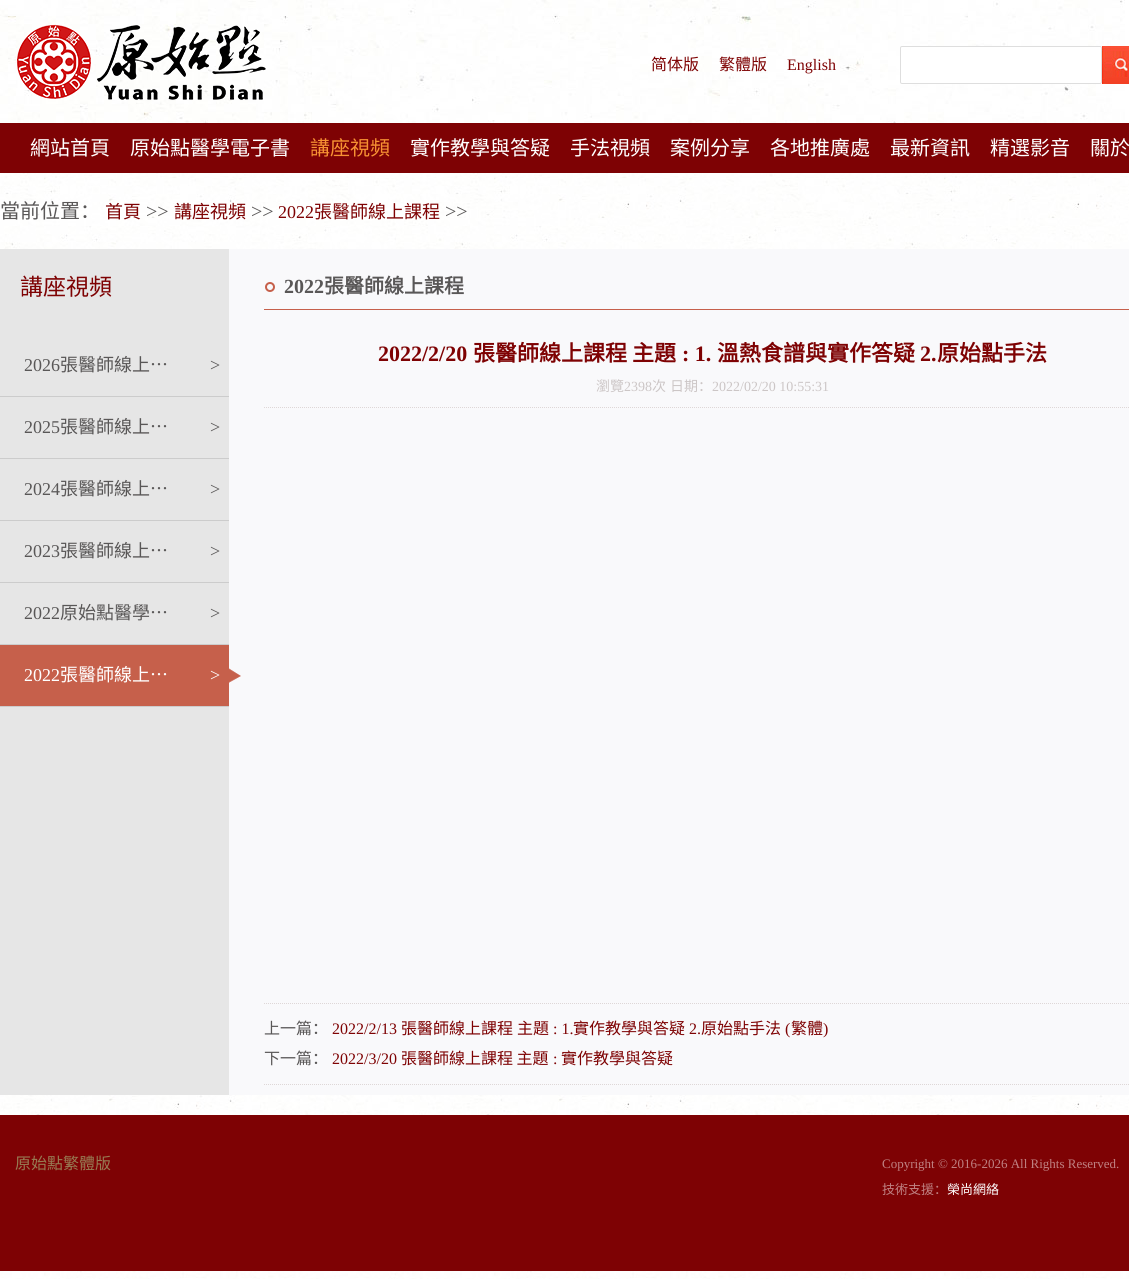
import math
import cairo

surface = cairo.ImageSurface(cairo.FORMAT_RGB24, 1129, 1279)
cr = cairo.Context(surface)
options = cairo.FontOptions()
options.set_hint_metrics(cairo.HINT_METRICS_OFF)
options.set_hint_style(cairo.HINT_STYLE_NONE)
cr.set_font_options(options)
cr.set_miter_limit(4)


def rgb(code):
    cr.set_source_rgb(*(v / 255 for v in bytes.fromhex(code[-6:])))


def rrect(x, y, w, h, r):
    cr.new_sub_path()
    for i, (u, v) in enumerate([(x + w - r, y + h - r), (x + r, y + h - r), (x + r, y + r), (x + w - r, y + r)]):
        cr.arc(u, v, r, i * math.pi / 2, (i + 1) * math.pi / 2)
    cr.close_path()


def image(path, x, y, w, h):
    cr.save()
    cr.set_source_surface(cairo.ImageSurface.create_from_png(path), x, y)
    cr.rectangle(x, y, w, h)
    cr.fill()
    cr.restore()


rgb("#ffffff")
cr.paint()
image("img/1.png", 0, 173, 1129, 1106)
image("img/2.png", 0, 0, 1125, 123)
image("img/3.png", 16, 24, 250, 76)
rgb("#ffffff")
rrect(900.5, 46.5, 201, 37, 1.5)
cr.fill_preserve()
rgb("#dedede")
cr.set_line_width(1)
cr.stroke()
image("img/4.png", 1102, 46, 27, 38)
for x, y, w, h, color in [
    (0, 123, 1129, 50, "#7e0204"),
    (0, 249, 229, 846, "#e6e6e6"),
    (0, 396, 229, 1, "#cccccc"),
    (0, 458, 229, 1, "#cccccc"),
    (0, 520, 229, 1, "#cccccc"),
    (0, 582, 229, 1, "#cccccc"),
    (0, 644, 229, 1, "#cccccc"),
    (0, 645, 229, 61, "#c6604b"),
    (0, 706, 229, 1, "#cccccc"),
    (229, 249, 900, 846, "#f9f9fb"),
]:
    rgb(color)
    cr.rectangle(x, y, w, h)
    cr.fill()
image("img/5.png", 229, 668, 12, 15)
image("img/6.png", 265, 282, 10, 10)
rgb("#c6604b")
cr.rectangle(264, 309, 865, 1)
cr.fill()
cr.new_path()
cr.move_to(264, 407.5)
cr.line_to(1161, 407.5)
rgb("#ded7d7")
cr.set_dash([1, 1])
cr.stroke()
cr.new_path()
cr.move_to(264, 1003.5)
cr.line_to(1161, 1003.5)
cr.stroke()
cr.new_path()
cr.move_to(264, 1084.5)
cr.line_to(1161, 1084.5)
cr.stroke()
rgb("#7e0204")
cr.rectangle(0, 1115, 1129, 156)
cr.fill()
cr.select_font_face("Noto Sans CJK SC")
cr.set_font_size(16)
rgb("#7e0203")
cr.move_to(651, 70)
cr.show_text("简体版")
cr.move_to(719, 70)
cr.show_text("繁體版")
cr.select_font_face("Liberation Serif")
cr.move_to(787, 70)
cr.show_text("English")
cr.select_font_face("Noto Sans CJK SC")
cr.set_font_size(20)
rgb("#ffffff")
cr.move_to(30, 155)
cr.show_text("網站首頁")
cr.move_to(130, 155)
cr.show_text("原始點醫學電子書")
rgb("#f79233")
cr.move_to(310, 155)
cr.show_text("講座視頻")
rgb("#ffffff")
for x, y, s in [
    (410, 155, "實作教學與答疑"),
    (570, 155, "手法視頻"),
    (670, 155, "案例分享"),
    (770, 155, "各地推廣處"),
    (890, 155, "最新資訊"),
    (990, 155, "精選影音"),
    (1090, 155, "關於"),
]:
    cr.move_to(x, y)
    cr.show_text(s)
rgb("#595757")
cr.move_to(0, 218)
cr.show_text("當前位置：")
cr.set_font_size(18)
rgb("#7e0203")
cr.move_to(105, 218)
cr.show_text("首頁")
cr.select_font_face("Liberation Serif")
cr.set_font_size(20)
rgb("#595757")
cr.move_to(146, 218)
cr.show_text(">>")
cr.select_font_face("Noto Sans CJK SC")
cr.set_font_size(18)
rgb("#7e0203")
cr.move_to(174, 218)
cr.show_text("講座視頻")
cr.select_font_face("Liberation Serif")
cr.set_font_size(20)
rgb("#595757")
cr.move_to(251, 218)
cr.show_text(">>")
cr.set_font_size(18)
rgb("#7e0203")
cr.move_to(278, 218)
cr.show_text("2022")
cr.select_font_face("Noto Sans CJK SC")
cr.move_to(314, 218)
cr.show_text("張醫師線上課程")
cr.select_font_face("Liberation Serif")
cr.set_font_size(20)
rgb("#595757")
cr.move_to(445, 218)
cr.show_text(">>")
cr.select_font_face("Noto Sans CJK SC")
cr.set_font_size(23)
rgb("#7e0203")
cr.move_to(20, 295)
cr.show_text("講座視頻")
cr.select_font_face("Liberation Serif")
cr.set_font_size(18)
rgb("#595757")
cr.move_to(24, 371)
cr.show_text("2026")
cr.select_font_face("Noto Sans CJK SC")
cr.move_to(60, 371)
cr.show_text("張醫師線上…")
cr.select_font_face("Liberation Serif")
cr.move_to(210, 371)
cr.show_text(">")
cr.move_to(24, 433)
cr.show_text("2025")
cr.select_font_face("Noto Sans CJK SC")
cr.move_to(60, 433)
cr.show_text("張醫師線上…")
cr.select_font_face("Liberation Serif")
cr.move_to(210, 433)
cr.show_text(">")
cr.move_to(24, 495)
cr.show_text("2024")
cr.select_font_face("Noto Sans CJK SC")
cr.move_to(60, 495)
cr.show_text("張醫師線上…")
cr.select_font_face("Liberation Serif")
cr.move_to(210, 495)
cr.show_text(">")
cr.move_to(24, 557)
cr.show_text("2023")
cr.select_font_face("Noto Sans CJK SC")
cr.move_to(60, 557)
cr.show_text("張醫師線上…")
cr.select_font_face("Liberation Serif")
cr.move_to(210, 557)
cr.show_text(">")
cr.move_to(24, 619)
cr.show_text("2022")
cr.select_font_face("Noto Sans CJK SC")
cr.move_to(60, 619)
cr.show_text("原始點醫學…")
cr.select_font_face("Liberation Serif")
cr.move_to(210, 619)
cr.show_text(">")
rgb("#ffffff")
cr.move_to(24, 681)
cr.show_text("2022")
cr.select_font_face("Noto Sans CJK SC")
cr.move_to(60, 681)
cr.show_text("張醫師線上…")
cr.select_font_face("Liberation Serif")
cr.move_to(210, 681)
cr.show_text(">")
cr.select_font_face("Liberation Serif", cairo.FONT_SLANT_NORMAL, cairo.FONT_WEIGHT_BOLD)
cr.set_font_size(20)
rgb("#595757")
cr.move_to(284, 293)
cr.show_text("2022")
cr.select_font_face("Noto Sans CJK SC", cairo.FONT_SLANT_NORMAL, cairo.FONT_WEIGHT_BOLD)
cr.move_to(324, 293)
cr.show_text("張醫師線上課程")
cr.select_font_face("Liberation Serif", cairo.FONT_SLANT_NORMAL, cairo.FONT_WEIGHT_BOLD)
cr.set_font_size(22)
rgb("#7e0203")
cr.move_to(378, 361)
cr.show_text("2022/2/20")
cr.select_font_face("Noto Sans CJK SC", cairo.FONT_SLANT_NORMAL, cairo.FONT_WEIGHT_BOLD)
cr.move_to(473, 361)
cr.show_text("張醫師線上課程")
cr.move_to(632, 361)
cr.show_text("主題")
cr.select_font_face("Liberation Serif", cairo.FONT_SLANT_NORMAL, cairo.FONT_WEIGHT_BOLD)
cr.move_to(682, 361)
cr.show_text(": 1.")
cr.select_font_face("Noto Sans CJK SC", cairo.FONT_SLANT_NORMAL, cairo.FONT_WEIGHT_BOLD)
cr.move_to(717, 361)
cr.show_text("溫熱食譜與實作答疑")
cr.select_font_face("Liberation Serif", cairo.FONT_SLANT_NORMAL, cairo.FONT_WEIGHT_BOLD)
cr.move_to(920, 361)
cr.show_text("2.")
cr.select_font_face("Noto Sans CJK SC", cairo.FONT_SLANT_NORMAL, cairo.FONT_WEIGHT_BOLD)
cr.move_to(937, 361)
cr.show_text("原始點手法")
cr.select_font_face("Noto Sans CJK SC")
cr.set_font_size(14)
rgb("#ccc6c6")
cr.move_to(596, 391)
cr.show_text("瀏覽")
cr.select_font_face("Liberation Serif")
cr.move_to(624, 391)
cr.show_text("2398")
cr.select_font_face("Noto Sans CJK SC")
cr.move_to(652, 391)
cr.show_text("次")
cr.move_to(670, 391)
cr.show_text("日期：")
cr.select_font_face("Liberation Serif")
cr.move_to(712, 391)
cr.show_text("2022/02/20 10:55:31")
cr.select_font_face("Noto Sans CJK SC")
cr.set_font_size(16)
rgb("#595757")
cr.move_to(264, 1034)
cr.show_text("上一篇：")
cr.select_font_face("Liberation Serif")
rgb("#7e0203")
cr.move_to(332, 1034)
cr.show_text("2022/2/13")
cr.select_font_face("Noto Sans CJK SC")
cr.move_to(401, 1034)
cr.show_text("張醫師線上課程")
cr.move_to(517, 1034)
cr.show_text("主題")
cr.select_font_face("Liberation Serif")
cr.move_to(553, 1034)
cr.show_text(": 1.")
cr.select_font_face("Noto Sans CJK SC")
cr.move_to(573, 1034)
cr.show_text("實作教學與答疑")
cr.select_font_face("Liberation Serif")
cr.move_to(689, 1034)
cr.show_text("2.")
cr.select_font_face("Noto Sans CJK SC")
cr.move_to(701, 1034)
cr.show_text("原始點手法")
cr.select_font_face("Liberation Serif")
cr.move_to(785, 1034)
cr.show_text("(")
cr.select_font_face("Noto Sans CJK SC")
cr.move_to(791, 1034)
cr.show_text("繁體")
cr.select_font_face("Liberation Serif")
cr.move_to(823, 1034)
cr.show_text(")")
cr.select_font_face("Noto Sans CJK SC")
rgb("#595757")
cr.move_to(264, 1064)
cr.show_text("下一篇：")
cr.select_font_face("Liberation Serif")
rgb("#7e0203")
cr.move_to(332, 1064)
cr.show_text("2022/3/20")
cr.select_font_face("Noto Sans CJK SC")
cr.move_to(401, 1064)
cr.show_text("張醫師線上課程 主題")
cr.select_font_face("Liberation Serif")
cr.move_to(553, 1064)
cr.show_text(":")
cr.select_font_face("Noto Sans CJK SC")
cr.move_to(561, 1064)
cr.show_text("實作教學與答疑")
rgb("#977b53")
cr.move_to(15, 1169)
cr.show_text("原始點繁體版")
cr.select_font_face("Liberation Serif")
cr.set_font_size(13)
rgb("#bf8182")
cr.move_to(882, 1168)
cr.show_text("Copyright © 2016-2026 All Rights Reserved.")
cr.select_font_face("Noto Sans CJK SC")
cr.move_to(882, 1194)
cr.show_text("技術支援：")
rgb("#ffffff")
cr.move_to(947, 1194)
cr.show_text("榮尚網絡")
surface.write_to_png("page.png")
